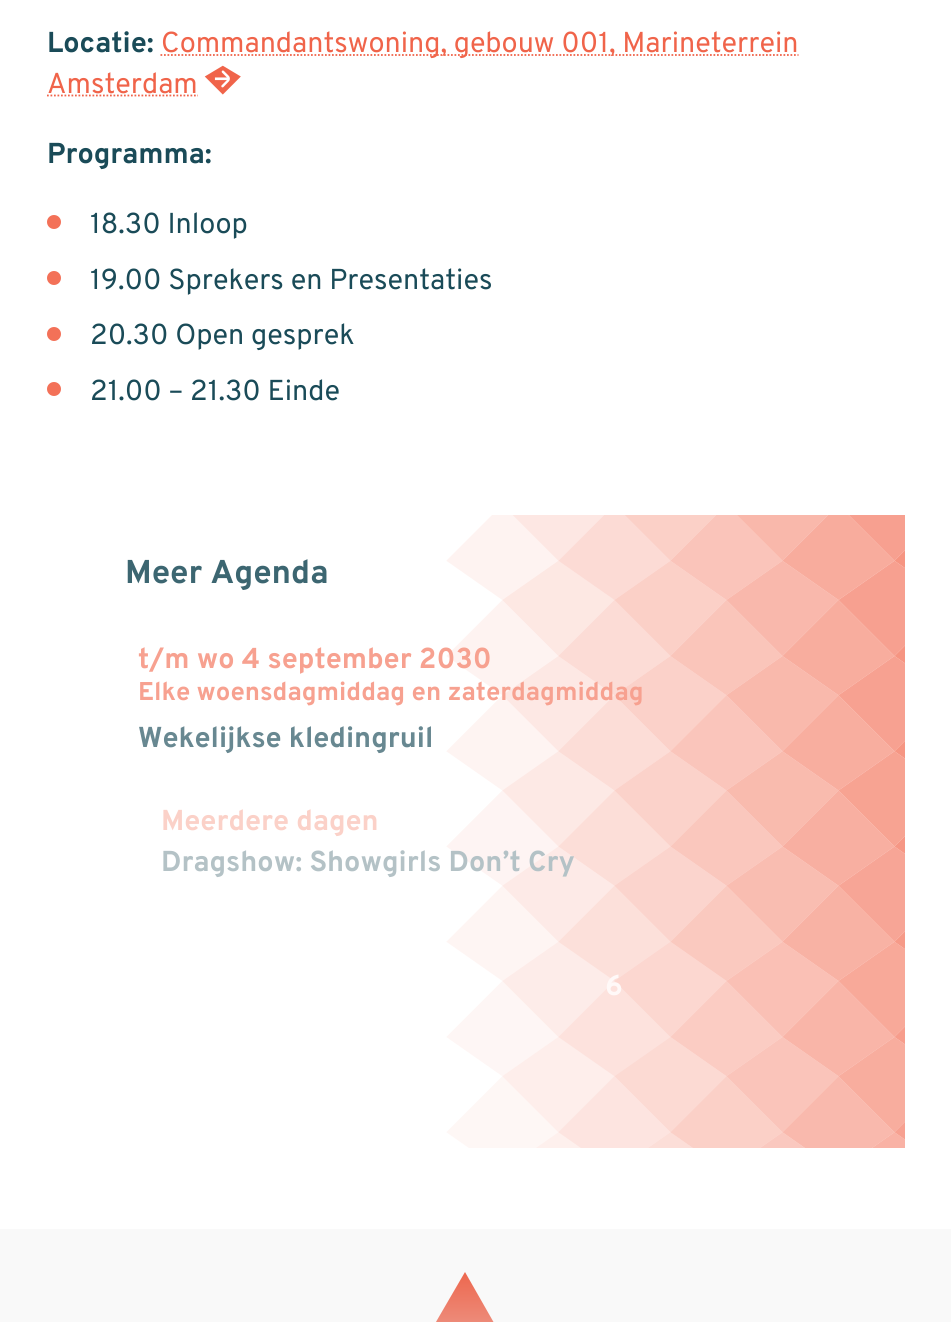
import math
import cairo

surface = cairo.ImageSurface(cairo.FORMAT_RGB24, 951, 1322)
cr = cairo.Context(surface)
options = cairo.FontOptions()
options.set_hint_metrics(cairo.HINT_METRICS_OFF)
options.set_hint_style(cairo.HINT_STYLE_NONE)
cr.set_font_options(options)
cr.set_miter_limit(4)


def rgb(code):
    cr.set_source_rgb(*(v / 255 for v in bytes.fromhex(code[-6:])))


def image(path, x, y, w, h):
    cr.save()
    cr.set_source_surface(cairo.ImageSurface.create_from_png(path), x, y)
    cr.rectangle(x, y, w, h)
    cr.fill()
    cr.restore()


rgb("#ffffff")
cr.paint()
cr.new_path()
cr.move_to(160.5, 55)
cr.line_to(798.5, 55)
rgb("#f0644a")
cr.set_line_width(1.8)
cr.set_dash([1.75, 1.75])
cr.stroke()
cr.new_path()
cr.move_to(47, 95.5)
cr.line_to(198, 95.5)
cr.stroke()
image("img/1.png", 204, 65, 37, 30)
rgb("#f37158")
cr.arc(54, 222, 7, 0, 2 * math.pi)
cr.fill()
cr.arc(54, 278, 7, 0, 2 * math.pi)
cr.fill()
cr.arc(54, 334, 7, 0, 2 * math.pi)
cr.fill()
cr.arc(54, 389, 7, 0, 2 * math.pi)
cr.fill()
image("img/2.png", 446, 515, 459, 633)
rgb("#f9f9f9")
cr.rectangle(0, 1229, 951, 93)
cr.fill()
gradient = cairo.LinearGradient(465, 1272, 465, 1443)
gradient.add_color_stop_rgba(0, 0.929, 0.404, 0.306, 1)
gradient.add_color_stop_rgba(1, 0.933, 0.878, 0.878, 1)
cr.set_source(gradient)
cr.new_path()
cr.move_to(465, 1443)
cr.line_to(415, 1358)
cr.line_to(465, 1272)
cr.line_to(514, 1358)
cr.close_path()
cr.fill()
cr.select_font_face("Overpass", cairo.FONT_SLANT_NORMAL, cairo.FONT_WEIGHT_BOLD)
cr.set_font_size(28.8)
rgb("#1a4b58")
cr.move_to(47, 52)
cr.show_text("Locatie:")
cr.select_font_face("Overpass")
rgb("#f0644a")
cr.move_to(161, 52)
cr.show_text("Commandantswoning, gebouw 001, Marineterrein")
cr.move_to(47, 93)
cr.show_text("Amsterdam")
cr.select_font_face("Overpass", cairo.FONT_SLANT_NORMAL, cairo.FONT_WEIGHT_BOLD)
rgb("#1a4b58")
cr.move_to(47, 163)
cr.show_text("Programma:")
cr.select_font_face("Overpass")
for x, y, s in [
    (90, 233, "18.30 Inloop"),
    (90, 289, "19.00 Sprekers en Presentaties"),
    (90, 344, "20.30 Open gesprek"),
    (90, 400, "21.00 – 21.30 Einde"),
]:
    cr.move_to(x, y)
    cr.show_text(s)
cr.select_font_face("Overpass", cairo.FONT_SLANT_NORMAL, cairo.FONT_WEIGHT_BOLD)
cr.set_font_size(33)
rgb("#3c6671")
cr.move_to(125, 583)
cr.show_text("Meer Agenda")
cr.set_font_size(28.8)
rgb("#f7a190")
cr.move_to(138, 668)
cr.show_text("t/m wo 4 september 2030")
cr.set_font_size(25.7)
cr.move_to(138, 700)
cr.show_text("Elke woensdagmiddag en zaterdagmiddag")
cr.set_font_size(28.8)
rgb("#688891")
cr.move_to(138, 747)
cr.show_text("Wekelijkse kledingruil")
rgb("#fbd1c8")
cr.move_to(161, 830)
cr.show_text("Meerdere dagen")
rgb("#b4c2c6")
cr.move_to(161, 871)
cr.show_text("Dragshow: Showgirls Don’t Cry")
rgb("#fff9f8")
cr.move_to(605, 995)
cr.show_text("6")
surface.write_to_png("page.png")
